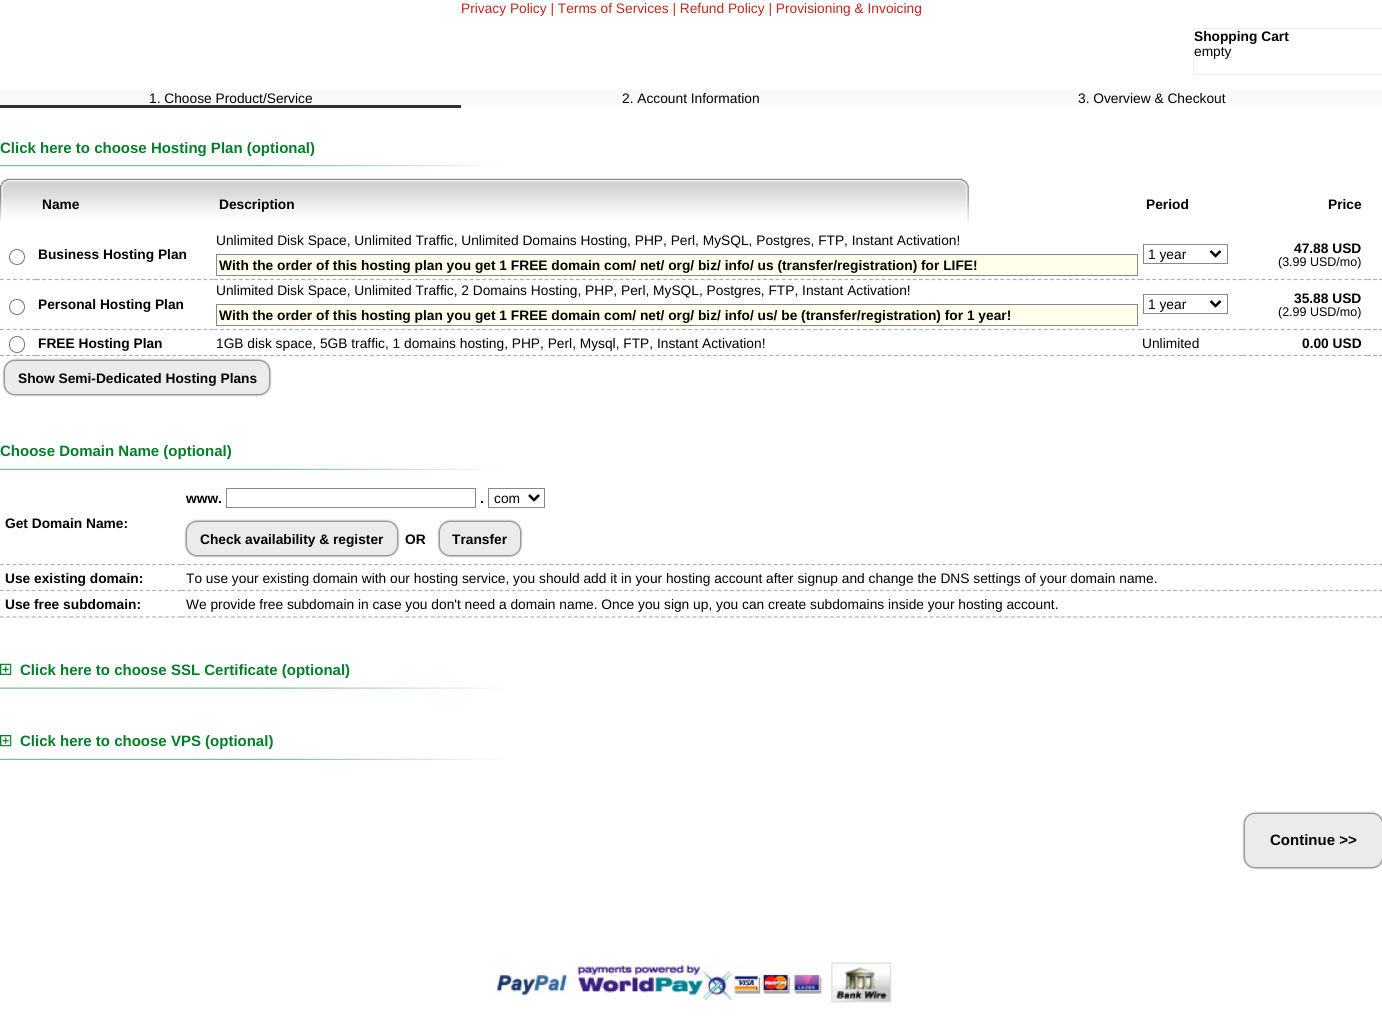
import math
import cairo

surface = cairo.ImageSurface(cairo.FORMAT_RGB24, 1382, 1022)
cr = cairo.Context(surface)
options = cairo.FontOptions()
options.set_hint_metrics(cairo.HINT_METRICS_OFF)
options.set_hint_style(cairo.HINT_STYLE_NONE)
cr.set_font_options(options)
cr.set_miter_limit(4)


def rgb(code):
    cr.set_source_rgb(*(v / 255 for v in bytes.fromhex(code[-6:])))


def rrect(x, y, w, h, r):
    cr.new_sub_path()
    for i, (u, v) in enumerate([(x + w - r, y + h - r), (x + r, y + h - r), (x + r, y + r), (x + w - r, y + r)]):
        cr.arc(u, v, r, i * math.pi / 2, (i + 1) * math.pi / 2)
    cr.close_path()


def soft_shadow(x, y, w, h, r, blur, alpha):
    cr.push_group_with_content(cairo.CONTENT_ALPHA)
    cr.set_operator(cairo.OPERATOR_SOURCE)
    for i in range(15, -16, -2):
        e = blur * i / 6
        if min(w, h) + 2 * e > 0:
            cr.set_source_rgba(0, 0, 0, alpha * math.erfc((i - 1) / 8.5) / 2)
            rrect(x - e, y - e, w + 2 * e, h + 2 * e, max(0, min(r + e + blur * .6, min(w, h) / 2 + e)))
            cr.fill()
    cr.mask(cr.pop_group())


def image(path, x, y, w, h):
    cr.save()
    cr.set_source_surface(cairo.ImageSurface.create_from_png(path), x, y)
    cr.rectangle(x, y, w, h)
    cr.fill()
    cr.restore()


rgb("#ffffff")
cr.paint()
cr.rectangle(1193.5, 28.5, 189, 46)
rgb("#efefef")
cr.set_line_width(1)
cr.stroke()
rgb("#f9f9f9")
cr.rectangle(0, 90, 1382, 15)
cr.fill()
rgb("#323232")
cr.rectangle(0, 105, 461, 3)
cr.fill()
image("img/1.png", 0, 165, 506, 2)
image("img/2.png", 0, 178, 969, 46)
cr.new_path()
cr.move_to(0, 279.5)
cr.line_to(36, 279.5)
rgb("#afafaf")
cr.set_line_width(1.2)
cr.set_dash([3.75, 2.75])
cr.stroke()
cr.arc(17, 257, 7.5, 0, 2 * math.pi)
rgb("#767676")
cr.set_line_width(1)
cr.set_dash([])
cr.stroke()
cr.new_path()
cr.move_to(36, 279.5)
cr.line_to(214, 279.5)
rgb("#afafaf")
cr.set_line_width(1.2)
cr.set_dash([3.75, 2.45])
cr.stroke()
cr.new_path()
cr.move_to(214, 279.5)
cr.line_to(1140, 279.5)
cr.set_dash([3.75, 2.49])
cr.stroke()
rgb("#ffffec")
cr.rectangle(216.5, 254.5, 921, 21)
cr.fill_preserve()
rgb("#878787")
cr.set_line_width(1)
cr.set_dash([])
cr.stroke()
cr.new_path()
cr.move_to(1140, 279.5)
cr.line_to(1242.5, 279.5)
rgb("#afafaf")
cr.set_line_width(1.2)
cr.set_dash([3.75, 2.42])
cr.stroke()
cr.rectangle(1143.5, 244.5, 84, 19)
rgb("#878787")
cr.set_line_width(1)
cr.set_dash([])
cr.stroke()
cr.new_path()
cr.move_to(1210.5, 251)
cr.line_to(1215.5, 256)
cr.line_to(1220.5, 251)
rgb("#000000")
cr.set_line_width(2.5)
cr.stroke()
cr.new_path()
cr.move_to(1242.5, 279.5)
cr.line_to(1367.5, 279.5)
rgb("#afafaf")
cr.set_line_width(1.2)
cr.set_dash([3.75, 2.64])
cr.stroke()
cr.new_path()
cr.move_to(1367.5, 279.5)
cr.line_to(1371, 279.5)
cr.move_to(1373, 279.5)
cr.line_to(1377, 279.5)
cr.move_to(1379, 279.5)
cr.line_to(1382.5, 279.5)
cr.set_dash([])
cr.stroke()
cr.new_path()
cr.move_to(0, 329.5)
cr.line_to(36, 329.5)
cr.set_dash([3.75, 2.75])
cr.stroke()
cr.arc(17, 307, 7.5, 0, 2 * math.pi)
rgb("#767676")
cr.set_line_width(1)
cr.set_dash([])
cr.stroke()
cr.new_path()
cr.move_to(36, 329.5)
cr.line_to(214, 329.5)
rgb("#afafaf")
cr.set_line_width(1.2)
cr.set_dash([3.75, 2.45])
cr.stroke()
cr.new_path()
cr.move_to(214, 329.5)
cr.line_to(1140, 329.5)
cr.set_dash([3.75, 2.49])
cr.stroke()
rgb("#ffffec")
cr.rectangle(216.5, 304.5, 921, 21)
cr.fill_preserve()
rgb("#878787")
cr.set_line_width(1)
cr.set_dash([])
cr.stroke()
cr.new_path()
cr.move_to(1140, 329.5)
cr.line_to(1242.5, 329.5)
rgb("#afafaf")
cr.set_line_width(1.2)
cr.set_dash([3.75, 2.42])
cr.stroke()
cr.rectangle(1143.5, 294.5, 84, 19)
rgb("#878787")
cr.set_line_width(1)
cr.set_dash([])
cr.stroke()
cr.new_path()
cr.move_to(1210.5, 301)
cr.line_to(1215.5, 306)
cr.line_to(1220.5, 301)
rgb("#000000")
cr.set_line_width(2.5)
cr.stroke()
cr.new_path()
cr.move_to(1242.5, 329.5)
cr.line_to(1367.5, 329.5)
rgb("#afafaf")
cr.set_line_width(1.2)
cr.set_dash([3.75, 2.64])
cr.stroke()
cr.new_path()
cr.move_to(1367.5, 329.5)
cr.line_to(1371, 329.5)
cr.move_to(1373, 329.5)
cr.line_to(1377, 329.5)
cr.move_to(1379, 329.5)
cr.line_to(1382.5, 329.5)
cr.set_dash([])
cr.stroke()
cr.new_path()
cr.move_to(0, 355.5)
cr.line_to(36, 355.5)
cr.set_dash([3.75, 2.75])
cr.stroke()
rrect(9.5, 336.5, 15, 16, 7.5)
rgb("#767676")
cr.set_line_width(1)
cr.set_dash([])
cr.stroke()
cr.new_path()
cr.move_to(36, 355.5)
cr.line_to(214, 355.5)
rgb("#afafaf")
cr.set_line_width(1.2)
cr.set_dash([3.75, 2.45])
cr.stroke()
cr.new_path()
cr.move_to(214, 355.5)
cr.line_to(1140, 355.5)
cr.set_dash([3.75, 2.49])
cr.stroke()
cr.new_path()
cr.move_to(1140, 355.5)
cr.line_to(1242.5, 355.5)
cr.set_dash([3.75, 2.42])
cr.stroke()
cr.new_path()
cr.move_to(1242.5, 355.5)
cr.line_to(1367.5, 355.5)
cr.set_dash([3.75, 2.64])
cr.stroke()
cr.new_path()
cr.move_to(1367.5, 355.5)
cr.line_to(1371, 355.5)
cr.move_to(1373, 355.5)
cr.line_to(1377, 355.5)
cr.move_to(1379, 355.5)
cr.line_to(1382.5, 355.5)
cr.set_dash([])
cr.stroke()
rgb("#636363")
soft_shadow(4, 360, 266, 35, 11, 1, 1)
rgb("#eaebea")
rrect(4.5, 360.5, 265, 34, 10.5)
cr.fill_preserve()
rgb("#979797")
cr.set_line_width(1)
cr.stroke()
image("img/3.png", 0, 468, 506, 2)
cr.new_path()
cr.move_to(0, 564.5)
cr.line_to(181, 564.5)
rgb("#afafaf")
cr.set_line_width(1.2)
cr.set_dash([3.75, 2.59])
cr.stroke()
cr.new_path()
cr.move_to(181, 564.5)
cr.line_to(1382.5, 564.5)
cr.set_dash([3.75, 2.49])
cr.stroke()
cr.rectangle(226.5, 488.5, 249, 19)
rgb("#878787")
cr.set_line_width(1)
cr.set_dash([])
cr.stroke()
cr.rectangle(488.5, 488.5, 56, 19)
cr.stroke()
cr.new_path()
cr.move_to(529, 495)
cr.line_to(534, 500)
cr.line_to(539, 495)
rgb("#000000")
cr.set_line_width(2.5)
cr.stroke()
rgb("#636363")
soft_shadow(186, 521, 212, 35, 11, 1, 1)
rgb("#eaebea")
rrect(186.5, 521.5, 211, 34, 10.5)
cr.fill_preserve()
rgb("#979797")
cr.set_line_width(1)
cr.stroke()
rgb("#636363")
soft_shadow(439, 521, 82, 35, 11, 1, 1)
rgb("#eaebea")
rrect(439.5, 521.5, 81, 34, 10.5)
cr.fill_preserve()
rgb("#979797")
cr.stroke()
cr.new_path()
cr.move_to(0, 590.5)
cr.line_to(181, 590.5)
rgb("#afafaf")
cr.set_line_width(1.2)
cr.set_dash([3.75, 2.59])
cr.stroke()
cr.new_path()
cr.move_to(181, 590.5)
cr.line_to(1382.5, 590.5)
cr.set_dash([3.75, 2.49])
cr.stroke()
cr.new_path()
cr.move_to(0, 617)
cr.line_to(181, 617)
cr.set_dash([3.75, 2.59])
cr.stroke()
cr.new_path()
cr.move_to(181, 617)
cr.line_to(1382.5, 617)
cr.set_dash([3.75, 2.49])
cr.stroke()
image("img/4.png", 0, 687, 502, 2)
image("img/5.png", 0, 663, 12, 12)
image("img/3.png", 0, 758, 506, 2)
image("img/6.png", 0, 735, 12, 12)
rgb("#636363")
soft_shadow(1244, 813, 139, 55, 11, 1, 1)
rgb("#eaebea")
rrect(1244.5, 813.5, 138, 54, 10.5)
cr.fill_preserve()
rgb("#979797")
cr.set_line_width(1)
cr.set_dash([])
cr.stroke()
image("img/7.png", 493, 973, 79, 25)
image("img/8.png", 577, 964, 245, 37)
image("img/9.png", 831, 962, 61, 41)
cr.select_font_face("Liberation Sans")
cr.set_font_size(13.75)
rgb("#c1261d")
cr.move_to(461, 13)
cr.show_text("Privacy Policy | Terms of Services | Refund Policy | Provisioning & Invoicing")
cr.select_font_face("Liberation Sans", cairo.FONT_SLANT_NORMAL, cairo.FONT_WEIGHT_BOLD)
rgb("#000000")
cr.move_to(1194, 41)
cr.show_text("Shopping Cart")
cr.select_font_face("Liberation Sans")
for x, y, s in [
    (1194, 56, "empty"),
    (149, 103, "1. Choose Product/Service"),
    (622, 103, "2. Account Information"),
    (1078, 103, "3. Overview & Checkout"),
]:
    cr.move_to(x, y)
    cr.show_text(s)
cr.select_font_face("Liberation Sans", cairo.FONT_SLANT_NORMAL, cairo.FONT_WEIGHT_BOLD)
cr.set_font_size(15)
rgb("#027e2a")
cr.move_to(0, 153)
cr.show_text("Click here to choose Hosting Plan (optional)")
cr.set_font_size(13.75)
rgb("#000000")
for x, y, s in [
    (42, 209, "Name"),
    (219, 209, "Description"),
    (1146, 209, "Period"),
    (1328, 209, "Price"),
    (38, 259, "Business Hosting Plan"),
]:
    cr.move_to(x, y)
    cr.show_text(s)
cr.select_font_face("Liberation Sans")
cr.move_to(216, 245)
cr.show_text("Unlimited Disk Space, Unlimited Traffic, Unlimited Domains Hosting, PHP, Perl, MySQL, Postgres, FTP, Instant Activation!")
cr.select_font_face("Liberation Sans", cairo.FONT_SLANT_NORMAL, cairo.FONT_WEIGHT_BOLD)
cr.move_to(219, 270)
cr.show_text("With the order of this hosting plan you get 1 FREE domain com/ net/ org/ biz/ info/ us (transfer/registration) for LIFE!")
cr.select_font_face("Liberation Sans")
cr.move_to(1148, 259)
cr.show_text("1 year")
cr.select_font_face("Liberation Sans", cairo.FONT_SLANT_NORMAL, cairo.FONT_WEIGHT_BOLD)
cr.move_to(1294, 253)
cr.show_text("47.88 USD")
cr.select_font_face("Liberation Sans")
cr.set_font_size(12.5)
cr.move_to(1278, 266)
cr.show_text("(3.99 USD/mo)")
cr.select_font_face("Liberation Sans", cairo.FONT_SLANT_NORMAL, cairo.FONT_WEIGHT_BOLD)
cr.set_font_size(13.75)
cr.move_to(38, 309)
cr.show_text("Personal Hosting Plan")
cr.select_font_face("Liberation Sans")
cr.move_to(216, 295)
cr.show_text("Unlimited Disk Space, Unlimited Traffic, 2 Domains Hosting, PHP, Perl, MySQL, Postgres, FTP, Instant Activation!")
cr.select_font_face("Liberation Sans", cairo.FONT_SLANT_NORMAL, cairo.FONT_WEIGHT_BOLD)
cr.move_to(219, 320)
cr.show_text("With the order of this hosting plan you get 1 FREE domain com/ net/ org/ biz/ info/ us/ be (transfer/registration) for 1 year!")
cr.select_font_face("Liberation Sans")
cr.move_to(1148, 309)
cr.show_text("1 year")
cr.select_font_face("Liberation Sans", cairo.FONT_SLANT_NORMAL, cairo.FONT_WEIGHT_BOLD)
cr.move_to(1294, 303)
cr.show_text("35.88 USD")
cr.select_font_face("Liberation Sans")
cr.set_font_size(12.5)
cr.move_to(1278, 316)
cr.show_text("(2.99 USD/mo)")
cr.select_font_face("Liberation Sans", cairo.FONT_SLANT_NORMAL, cairo.FONT_WEIGHT_BOLD)
cr.set_font_size(13.75)
cr.move_to(38, 348)
cr.show_text("FREE Hosting Plan")
cr.select_font_face("Liberation Sans")
cr.move_to(216, 348)
cr.show_text("1GB disk space, 5GB traffic, 1 domains hosting, PHP, Perl, Mysql, FTP, Instant Activation!")
cr.move_to(1142, 348)
cr.show_text("Unlimited")
cr.select_font_face("Liberation Sans", cairo.FONT_SLANT_NORMAL, cairo.FONT_WEIGHT_BOLD)
cr.move_to(1302, 348)
cr.show_text("0.00 USD")
cr.move_to(18, 383)
cr.show_text("Show Semi-Dedicated Hosting Plans")
cr.set_font_size(15)
rgb("#027e2a")
cr.move_to(0, 456)
cr.show_text("Choose Domain Name (optional)")
cr.set_font_size(13.75)
rgb("#000000")
for x, y, s in [
    (5, 528, "Get Domain Name:"),
    (186, 503, "www."),
    (480, 503, "."),
]:
    cr.move_to(x, y)
    cr.show_text(s)
cr.select_font_face("Liberation Sans")
cr.move_to(494, 503)
cr.show_text("com")
cr.select_font_face("Liberation Sans", cairo.FONT_SLANT_NORMAL, cairo.FONT_WEIGHT_BOLD)
for x, y, s in [
    (200, 544, "Check availability & register"),
    (405, 544, "OR"),
    (452, 544, "Transfer"),
    (5, 583, "Use existing domain:"),
]:
    cr.move_to(x, y)
    cr.show_text(s)
cr.select_font_face("Liberation Sans")
cr.move_to(186, 583)
cr.show_text("To use your existing domain with our hosting service, you should add it in your hosting account after signup and change the DNS settings of your domain name.")
cr.select_font_face("Liberation Sans", cairo.FONT_SLANT_NORMAL, cairo.FONT_WEIGHT_BOLD)
cr.move_to(5, 609)
cr.show_text("Use free subdomain:")
cr.select_font_face("Liberation Sans")
cr.move_to(186, 609)
cr.show_text("We provide free subdomain in case you don't need a domain name. Once you sign up, you can create subdomains inside your hosting account.")
cr.select_font_face("Liberation Sans", cairo.FONT_SLANT_NORMAL, cairo.FONT_WEIGHT_BOLD)
cr.set_font_size(15)
rgb("#027e2a")
cr.move_to(20, 675)
cr.show_text("Click here to choose SSL Certificate (optional)")
cr.move_to(20, 746)
cr.show_text("Click here to choose VPS (optional)")
rgb("#000000")
cr.move_to(1270, 845)
cr.show_text("Continue >>")
surface.write_to_png("page.png")
